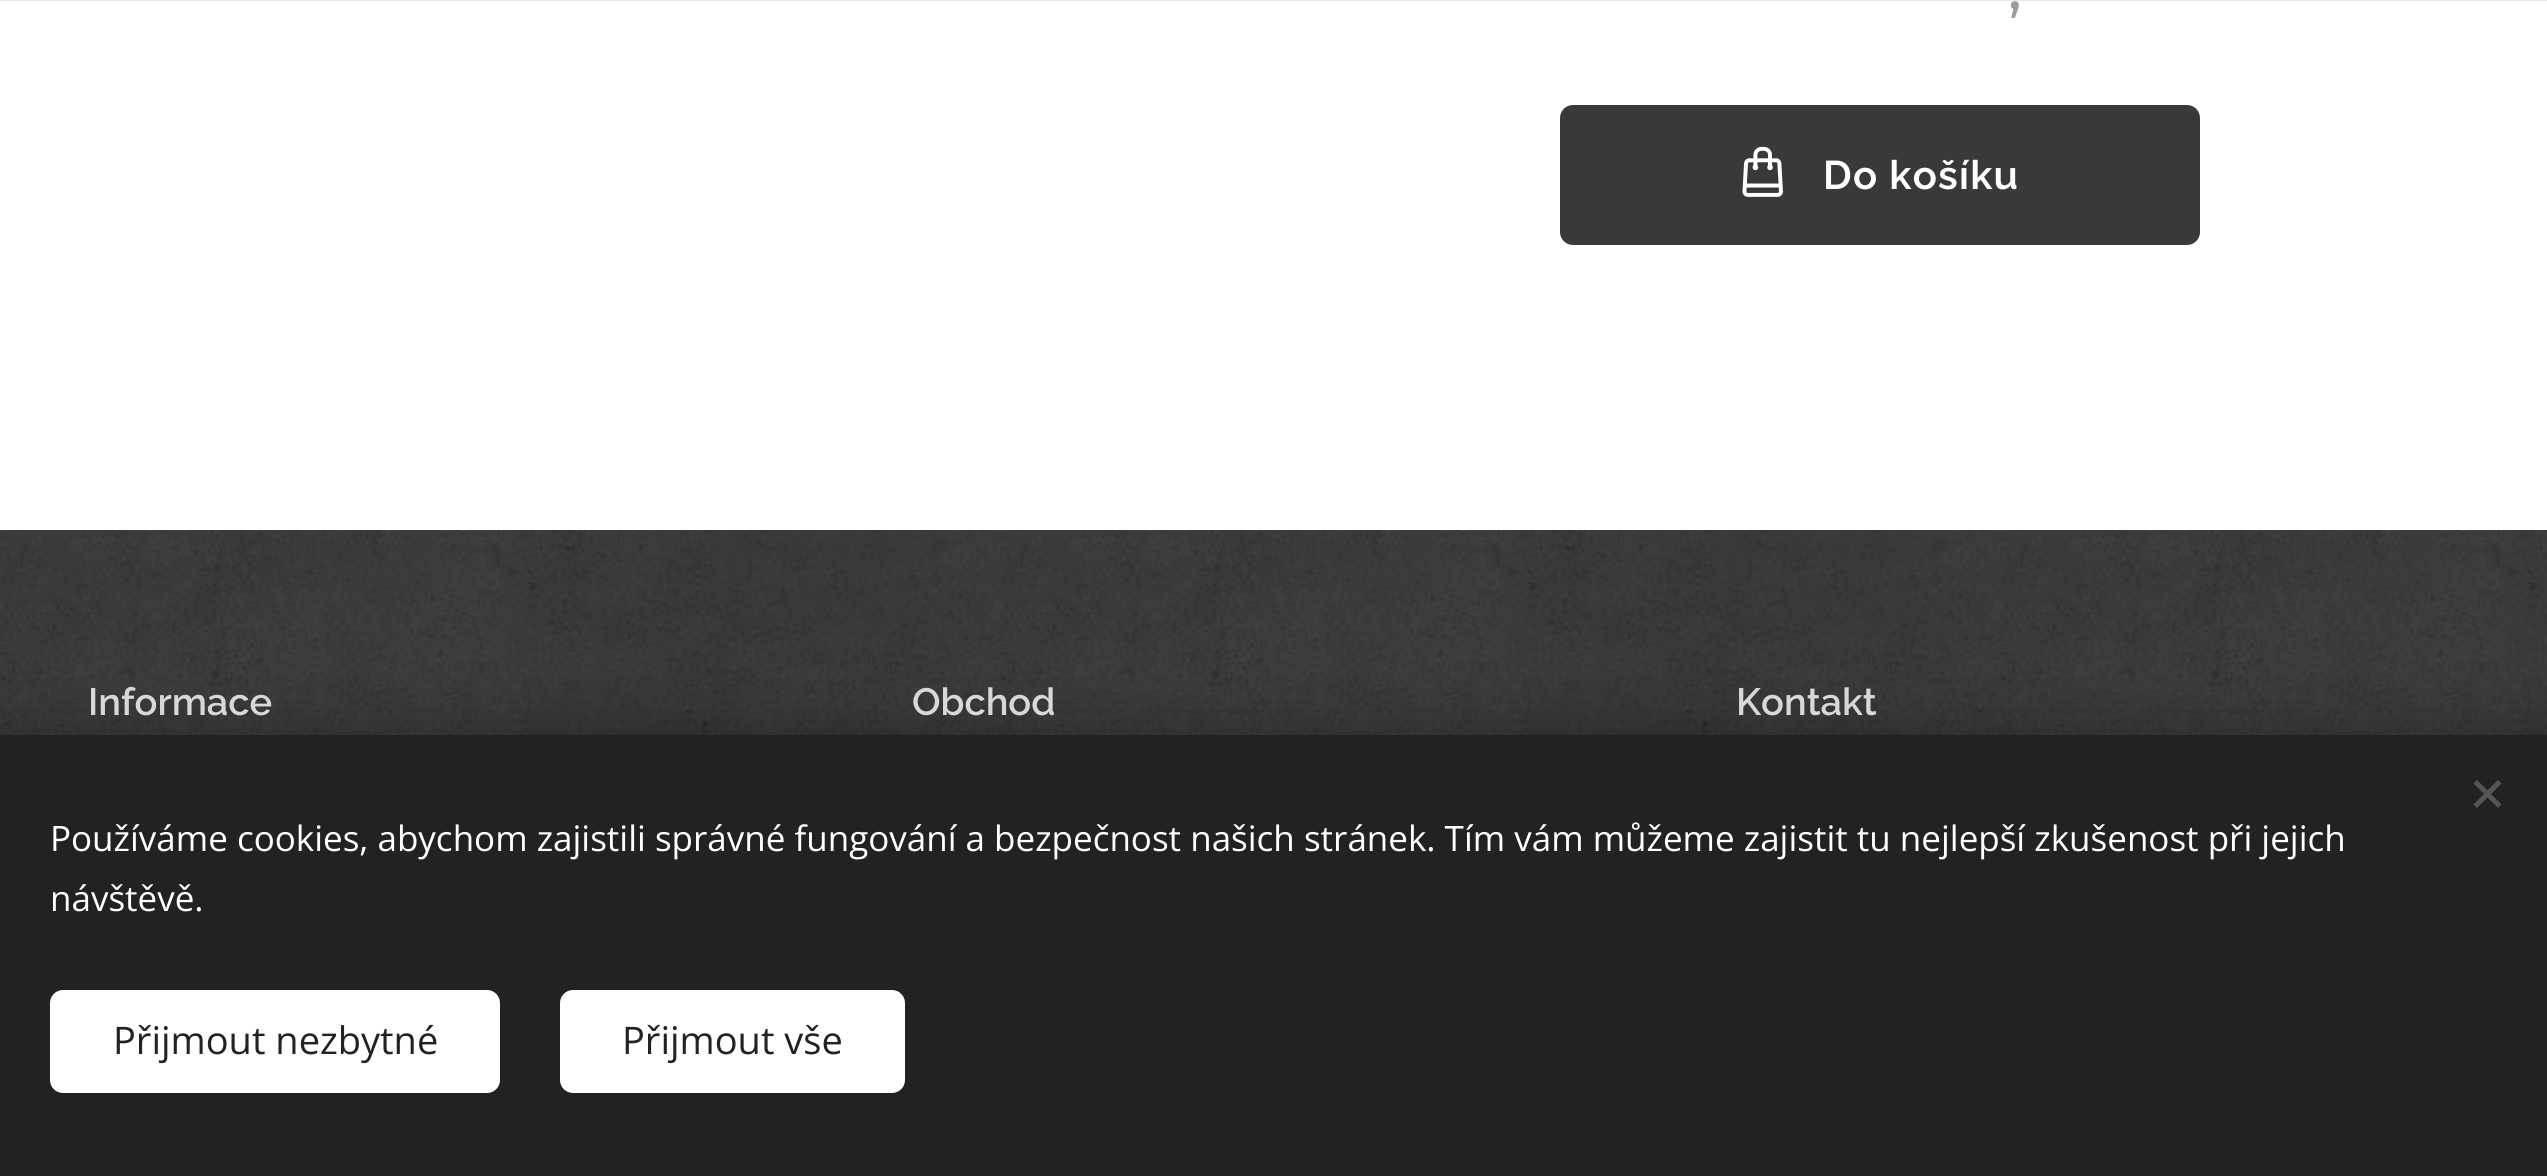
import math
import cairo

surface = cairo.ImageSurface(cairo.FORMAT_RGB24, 2547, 1176)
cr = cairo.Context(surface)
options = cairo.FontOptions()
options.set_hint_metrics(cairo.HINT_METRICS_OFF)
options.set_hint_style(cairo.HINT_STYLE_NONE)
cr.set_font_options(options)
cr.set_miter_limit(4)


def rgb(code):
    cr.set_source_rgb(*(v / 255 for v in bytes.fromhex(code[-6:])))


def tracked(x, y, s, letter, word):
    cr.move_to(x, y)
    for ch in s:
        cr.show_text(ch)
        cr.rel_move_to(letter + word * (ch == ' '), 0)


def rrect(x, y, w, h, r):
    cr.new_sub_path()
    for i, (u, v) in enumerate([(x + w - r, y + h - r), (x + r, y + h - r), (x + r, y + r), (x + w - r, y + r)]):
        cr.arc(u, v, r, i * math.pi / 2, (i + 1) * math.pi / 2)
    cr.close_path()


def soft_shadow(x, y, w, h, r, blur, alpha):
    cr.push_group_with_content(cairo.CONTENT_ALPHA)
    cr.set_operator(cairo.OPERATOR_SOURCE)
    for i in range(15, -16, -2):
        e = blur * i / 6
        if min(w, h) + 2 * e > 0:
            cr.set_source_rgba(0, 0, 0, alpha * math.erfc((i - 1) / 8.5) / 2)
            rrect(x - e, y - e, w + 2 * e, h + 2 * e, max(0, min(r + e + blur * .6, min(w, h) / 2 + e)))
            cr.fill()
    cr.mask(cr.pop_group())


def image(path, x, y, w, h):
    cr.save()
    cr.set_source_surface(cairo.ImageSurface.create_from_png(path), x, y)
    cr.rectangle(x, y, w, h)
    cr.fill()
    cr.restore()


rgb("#ffffff")
cr.paint()
rgb("#e8e8e8")
cr.rectangle(0, 0, 2547, 1)
cr.fill()
rgb("#393939")
rrect(1561.5, 106.5, 637, 137, 11.5)
cr.fill_preserve()
cr.set_line_width(3)
cr.stroke()
image("img/1.png", 1742, 146, 41, 51)
image("img/2.png", 0, 530, 2547, 205)
rgb("#000000")
soft_shadow(0, 735, 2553, 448, 0, 31, 0.33)
rgb("#222222")
cr.rectangle(0, 735, 2547, 441)
cr.fill()
rgb("#555555")
cr.new_path()
cr.move_to(2473.5, 804.5)
cr.line_to(2498, 780)
cr.line_to(2501.5, 783.5)
cr.line_to(2477, 808)
cr.close_path()
cr.fill()
cr.new_path()
cr.move_to(2477, 780)
cr.line_to(2501.5, 804.5)
cr.line_to(2498, 808)
cr.line_to(2473.5, 783.5)
cr.close_path()
cr.fill()
rgb("#ffffff")
rrect(50, 990, 450, 103, 13)
cr.fill()
rrect(560, 990, 345, 103, 13)
cr.fill()
cr.select_font_face("Montserrat Medium")
cr.set_font_size(60)
rgb("#9d9d9d")
cr.move_to(2008, 9)
cr.show_text(",")
cr.select_font_face("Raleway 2 SemiBold")
cr.set_font_size(40)
rgb("#ffffff")
tracked(1823, 189, "Do košíku", 1.25, 0)
cr.select_font_face("Raleway SemiBold")
cr.set_font_size(38)
rgb("#d8d8d8")
for x, y, s in [
    (88, 715, "Informace"),
    (912, 715, "Obchod"),
    (1736, 715, "Kontakt"),
]:
    cr.move_to(x, y)
    cr.show_text(s)
cr.select_font_face("Open Sans")
cr.set_font_size(35)
rgb("#ffffff")
cr.move_to(50, 851)
cr.show_text("Používáme cookies, abychom zajistili správné fungování a bezpečnost našich stránek. Tím vám můžeme zajistit tu nejlepší zkušenost při jejich")
cr.move_to(50, 911)
cr.show_text("návštěvě.")
cr.set_font_size(38)
rgb("#222222")
cr.move_to(113, 1054)
cr.show_text("Přijmout nezbytné")
cr.move_to(622, 1054)
cr.show_text("Přijmout vše")
surface.write_to_png("page.png")
